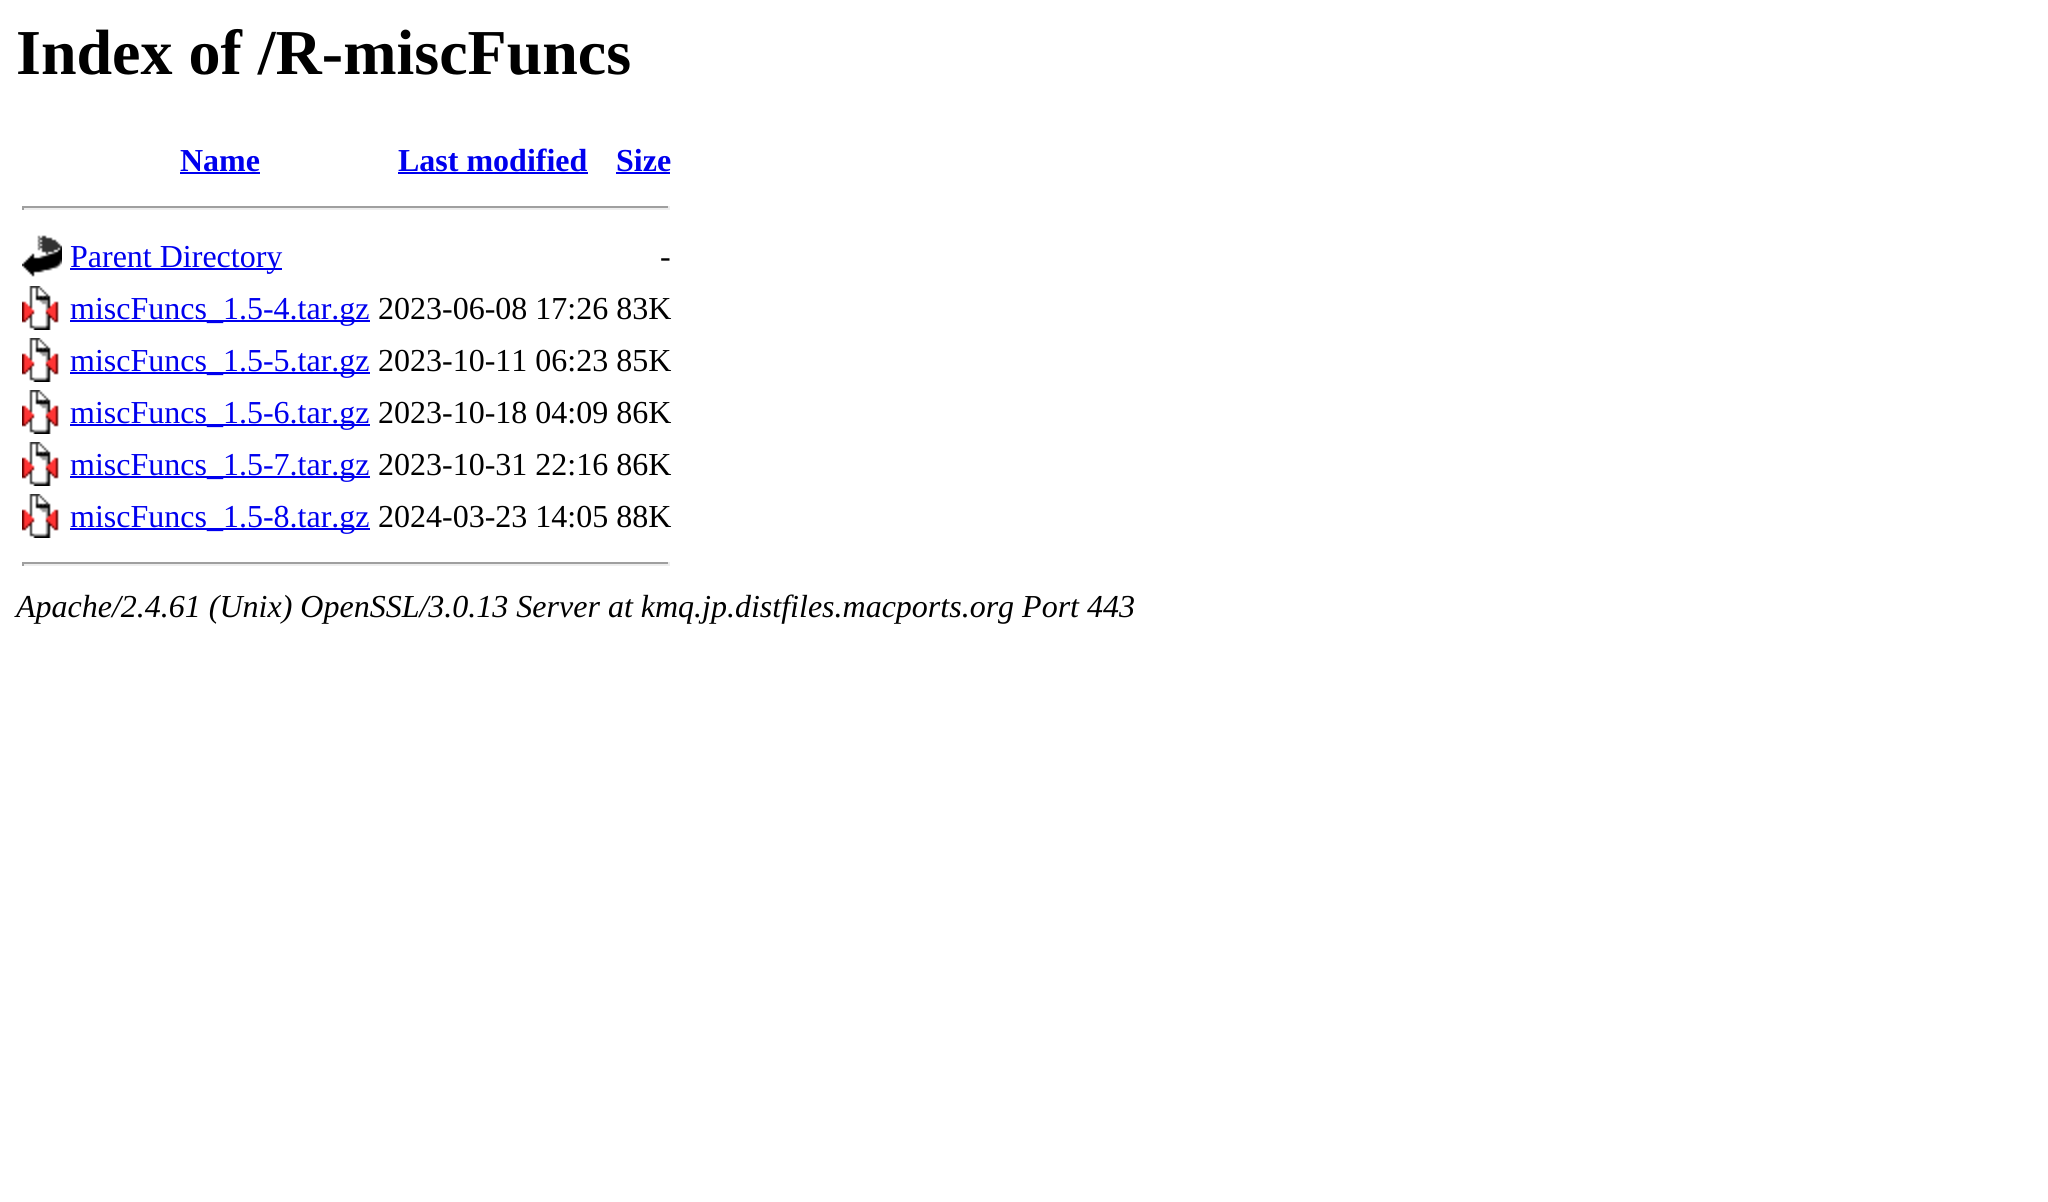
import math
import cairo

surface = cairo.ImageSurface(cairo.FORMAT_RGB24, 2048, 1202)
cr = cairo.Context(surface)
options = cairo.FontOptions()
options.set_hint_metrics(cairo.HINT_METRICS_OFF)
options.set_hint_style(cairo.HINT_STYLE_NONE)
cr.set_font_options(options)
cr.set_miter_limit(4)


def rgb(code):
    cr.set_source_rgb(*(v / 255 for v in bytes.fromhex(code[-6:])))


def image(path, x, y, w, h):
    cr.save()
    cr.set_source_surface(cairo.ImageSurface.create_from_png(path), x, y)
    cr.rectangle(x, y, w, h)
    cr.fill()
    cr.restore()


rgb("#ffffff")
cr.paint()
for x, y, w, h, color in [
    (180, 172, 80, 2, "#0000ee"),
    (398, 172, 190, 2, "#0000ee"),
    (616, 172, 54, 2, "#0000ee"),
    (22, 206, 648, 2, "#9f9f9f"),
    (668, 206, 2, 4, "#eeeeee"),
    (22, 208, 648, 2, "#eeeeee"),
    (22, 206, 2, 4, "#9f9f9f"),
]:
    rgb(color)
    cr.rectangle(x, y, w, h)
    cr.fill()
image("img/1.png", 22, 235, 40, 42)
rgb("#0000ee")
cr.rectangle(70, 268, 212, 2)
cr.fill()
image("img/2.png", 22, 286, 37, 44)
cr.rectangle(70, 320, 300, 2)
cr.fill()
image("img/2.png", 22, 338, 37, 44)
cr.rectangle(70, 372, 300, 2)
cr.fill()
image("img/2.png", 22, 390, 37, 44)
cr.rectangle(70, 424, 300, 2)
cr.fill()
image("img/2.png", 22, 442, 37, 44)
cr.rectangle(70, 476, 300, 2)
cr.fill()
image("img/2.png", 22, 494, 37, 44)
for x, y, w, h, color in [
    (70, 528, 300, 2, "#0000ee"),
    (22, 562, 648, 2, "#9f9f9f"),
    (668, 562, 2, 4, "#eeeeee"),
    (22, 564, 648, 2, "#eeeeee"),
    (22, 562, 2, 4, "#9f9f9f"),
]:
    rgb(color)
    cr.rectangle(x, y, w, h)
    cr.fill()
cr.select_font_face("Liberation Serif", cairo.FONT_SLANT_NORMAL, cairo.FONT_WEIGHT_BOLD)
cr.set_font_size(64)
rgb("#000000")
cr.move_to(16, 74)
cr.show_text("Index of /R-miscFuncs")
cr.set_font_size(32)
rgb("#0000ee")
for x, y, s in [
    (180, 171, "Name"),
    (398, 171, "Last modified"),
    (616, 171, "Size"),
]:
    cr.move_to(x, y)
    cr.show_text(s)
cr.select_font_face("Liberation Serif")
cr.move_to(70, 267)
cr.show_text("Parent Directory")
rgb("#000000")
cr.move_to(660, 267)
cr.show_text("-")
rgb("#0000ee")
cr.move_to(70, 319)
cr.show_text("miscFuncs_1.5-4.tar.gz")
rgb("#000000")
cr.move_to(378, 319)
cr.show_text("2023-06-08 17:26 83K")
rgb("#0000ee")
cr.move_to(70, 371)
cr.show_text("miscFuncs_1.5-5.tar.gz")
rgb("#000000")
cr.move_to(378, 371)
cr.show_text("2023-10-11 06:23 85K")
rgb("#0000ee")
cr.move_to(70, 423)
cr.show_text("miscFuncs_1.5-6.tar.gz")
rgb("#000000")
cr.move_to(378, 423)
cr.show_text("2023-10-18 04:09 86K")
rgb("#0000ee")
cr.move_to(70, 475)
cr.show_text("miscFuncs_1.5-7.tar.gz")
rgb("#000000")
cr.move_to(378, 475)
cr.show_text("2023-10-31 22:16 86K")
rgb("#0000ee")
cr.move_to(70, 527)
cr.show_text("miscFuncs_1.5-8.tar.gz")
rgb("#000000")
cr.move_to(378, 527)
cr.show_text("2024-03-23 14:05 88K")
cr.select_font_face("Liberation Serif", cairo.FONT_SLANT_ITALIC)
cr.move_to(16, 617)
cr.show_text("Apache/2.4.61 (Unix) OpenSSL/3.0.13 Server at kmq.jp.distfiles.macports.org Port 443")
surface.write_to_png("page.png")
